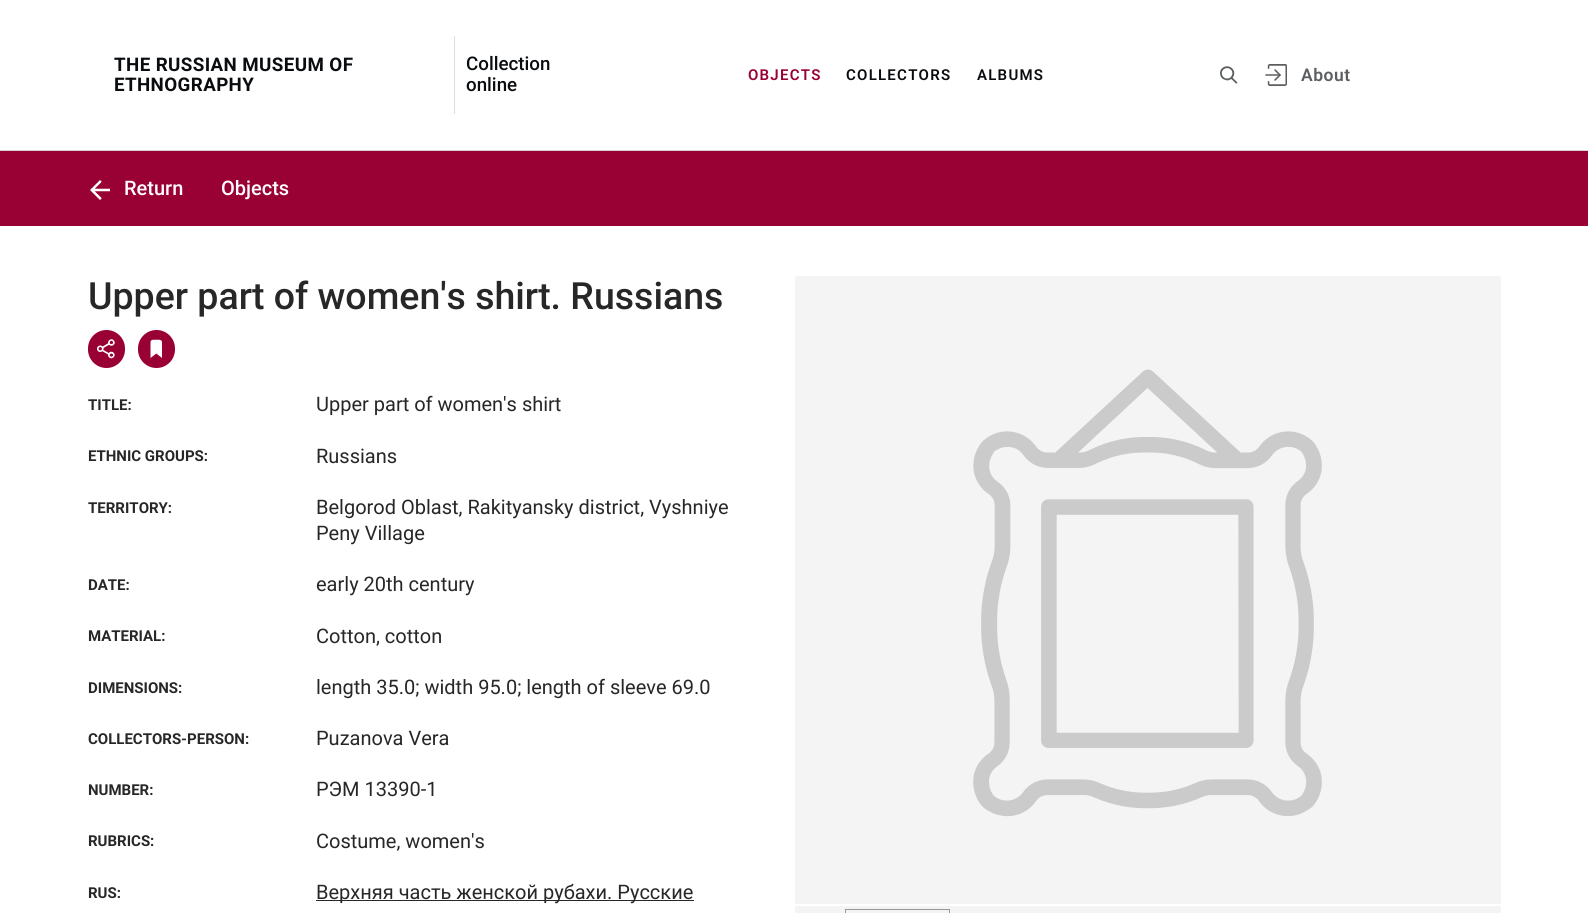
import math
import cairo

surface = cairo.ImageSurface(cairo.FORMAT_RGB24, 1588, 913)
cr = cairo.Context(surface)
options = cairo.FontOptions()
options.set_hint_metrics(cairo.HINT_METRICS_OFF)
options.set_hint_style(cairo.HINT_STYLE_NONE)
cr.set_font_options(options)
cr.set_miter_limit(4)


def rgb(code):
    cr.set_source_rgb(*(v / 255 for v in bytes.fromhex(code[-6:])))


def tracked(x, y, s, letter, word):
    cr.move_to(x, y)
    for ch in s:
        cr.show_text(ch)
        cr.rel_move_to(letter + word * (ch == ' '), 0)


def rrect(x, y, w, h, r):
    cr.new_sub_path()
    for i, (u, v) in enumerate([(x + w - r, y + h - r), (x + r, y + h - r), (x + r, y + r), (x + w - r, y + r)]):
        cr.arc(u, v, r, i * math.pi / 2, (i + 1) * math.pi / 2)
    cr.close_path()


def image(path, x, y, w, h):
    cr.save()
    cr.set_source_surface(cairo.ImageSurface.create_from_png(path), x, y)
    cr.rectangle(x, y, w, h)
    cr.fill()
    cr.restore()


rgb("#ffffff")
cr.paint()
rgb("#d3d3d3")
cr.rectangle(0, 150, 1588, 1)
cr.fill()
rgb("#dedede")
cr.rectangle(454, 36, 1, 78)
cr.fill()
image("img/1.png", 1220, 66, 18, 18)
image("img/2.png", 1265, 64, 22, 22)
rgb("#990033")
cr.rectangle(0, 151, 1588, 75)
cr.fill()
image("img/3.png", 90, 180, 20, 20)
rrect(88, 330, 37, 38, 18.5)
cr.fill()
image("img/4.png", 97, 339, 18, 20)
rrect(138, 330, 37, 38, 18.5)
cr.fill()
image("img/5.png", 150, 339, 12, 19)
rgb("#f4f4f4")
cr.rectangle(795, 276, 706, 628)
cr.fill()
image("img/6.png", 973, 369, 349, 448)
cr.rectangle(795, 906, 706, 7)
cr.fill()
cr.rectangle(845.5, 909.5, 104, 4)
rgb("#96999d")
cr.set_line_width(1)
cr.stroke()
rgb("#272727")
cr.rectangle(316, 900, 378, 1)
cr.fill()
cr.select_font_face("Roboto", cairo.FONT_SLANT_NORMAL, cairo.FONT_WEIGHT_BOLD)
cr.set_font_size(18.75)
rgb("#0a0d10")
tracked(114, 71, "THE RUSSIAN MUSEUM OF", 0.4, 0)
tracked(114, 91, "ETHNOGRAPHY", 0.4, 0)
cr.select_font_face("Roboto Medium")
cr.move_to(466, 70)
cr.show_text("Collection")
cr.move_to(466, 91)
cr.show_text("online")
cr.select_font_face("Roboto SemiBold")
cr.set_font_size(15)
rgb("#990033")
tracked(748, 80, "OBJECTS", 1.25, 0)
rgb("#0a0d10")
tracked(846, 80, "COLLECTORS", 1.25, 0)
tracked(977, 80, "ALBUMS", 1.25, 0)
cr.set_font_size(17.5)
rgb("#5c5f62")
tracked(1301, 81, "About", 0.5, 0)
cr.select_font_face("Roboto Medium")
cr.set_font_size(20)
rgb("#ffffff")
cr.move_to(124, 195)
cr.show_text("Return")
cr.move_to(221, 195)
cr.show_text("Objects")
cr.set_font_size(37.5)
rgb("#272727")
cr.move_to(88, 309)
cr.show_text("Upper part of women's shirt. Russians")
cr.select_font_face("Roboto", cairo.FONT_SLANT_NORMAL, cairo.FONT_WEIGHT_BOLD)
cr.set_font_size(15)
cr.move_to(88, 410)
cr.show_text("TITLE:")
cr.select_font_face("Roboto")
cr.set_font_size(20)
cr.move_to(316, 411)
cr.show_text("Upper part of women's shirt")
cr.select_font_face("Roboto", cairo.FONT_SLANT_NORMAL, cairo.FONT_WEIGHT_BOLD)
cr.set_font_size(15)
cr.move_to(88, 461)
cr.show_text("ETHNIC GROUPS:")
cr.select_font_face("Roboto")
cr.set_font_size(20)
cr.move_to(316, 463)
cr.show_text("Russians")
cr.select_font_face("Roboto", cairo.FONT_SLANT_NORMAL, cairo.FONT_WEIGHT_BOLD)
cr.set_font_size(15)
cr.move_to(88, 513)
cr.show_text("TERRITORY:")
cr.select_font_face("Roboto")
cr.set_font_size(20)
cr.move_to(316, 514)
cr.show_text("Belgorod Oblast, Rakityansky district, Vyshniye")
cr.move_to(316, 540)
cr.show_text("Peny Village")
cr.select_font_face("Roboto", cairo.FONT_SLANT_NORMAL, cairo.FONT_WEIGHT_BOLD)
cr.set_font_size(15)
cr.move_to(88, 590)
cr.show_text("DATE:")
cr.select_font_face("Roboto")
cr.set_font_size(20)
cr.move_to(316, 591)
cr.show_text("early 20th century")
cr.select_font_face("Roboto", cairo.FONT_SLANT_NORMAL, cairo.FONT_WEIGHT_BOLD)
cr.set_font_size(15)
cr.move_to(88, 641)
cr.show_text("MATERIAL:")
cr.select_font_face("Roboto")
cr.set_font_size(20)
cr.move_to(316, 643)
cr.show_text("Cotton, cotton")
cr.select_font_face("Roboto", cairo.FONT_SLANT_NORMAL, cairo.FONT_WEIGHT_BOLD)
cr.set_font_size(15)
cr.move_to(88, 693)
cr.show_text("DIMENSIONS:")
cr.select_font_face("Roboto")
cr.set_font_size(20)
cr.move_to(316, 694)
cr.show_text("length 35.0; width 95.0; length of sleeve 69.0")
cr.select_font_face("Roboto", cairo.FONT_SLANT_NORMAL, cairo.FONT_WEIGHT_BOLD)
cr.set_font_size(15)
cr.move_to(88, 744)
cr.show_text("COLLECTORS-PERSON:")
cr.select_font_face("Roboto")
cr.set_font_size(20)
cr.move_to(316, 745)
cr.show_text("Puzanova Vera")
cr.select_font_face("Roboto", cairo.FONT_SLANT_NORMAL, cairo.FONT_WEIGHT_BOLD)
cr.set_font_size(15)
cr.move_to(88, 795)
cr.show_text("NUMBER:")
cr.select_font_face("Roboto")
cr.set_font_size(20)
cr.move_to(316, 796)
cr.show_text("РЭМ 13390-1")
cr.select_font_face("Roboto", cairo.FONT_SLANT_NORMAL, cairo.FONT_WEIGHT_BOLD)
cr.set_font_size(15)
cr.move_to(88, 846)
cr.show_text("RUBRICS:")
cr.select_font_face("Roboto")
cr.set_font_size(20)
cr.move_to(316, 848)
cr.show_text("Costume, women's")
cr.select_font_face("Roboto", cairo.FONT_SLANT_NORMAL, cairo.FONT_WEIGHT_BOLD)
cr.set_font_size(15)
cr.move_to(88, 898)
cr.show_text("RUS:")
cr.select_font_face("Roboto")
cr.set_font_size(20)
cr.move_to(316, 899)
cr.show_text("Верхняя часть женской рубахи. Русские")
surface.write_to_png("page.png")
